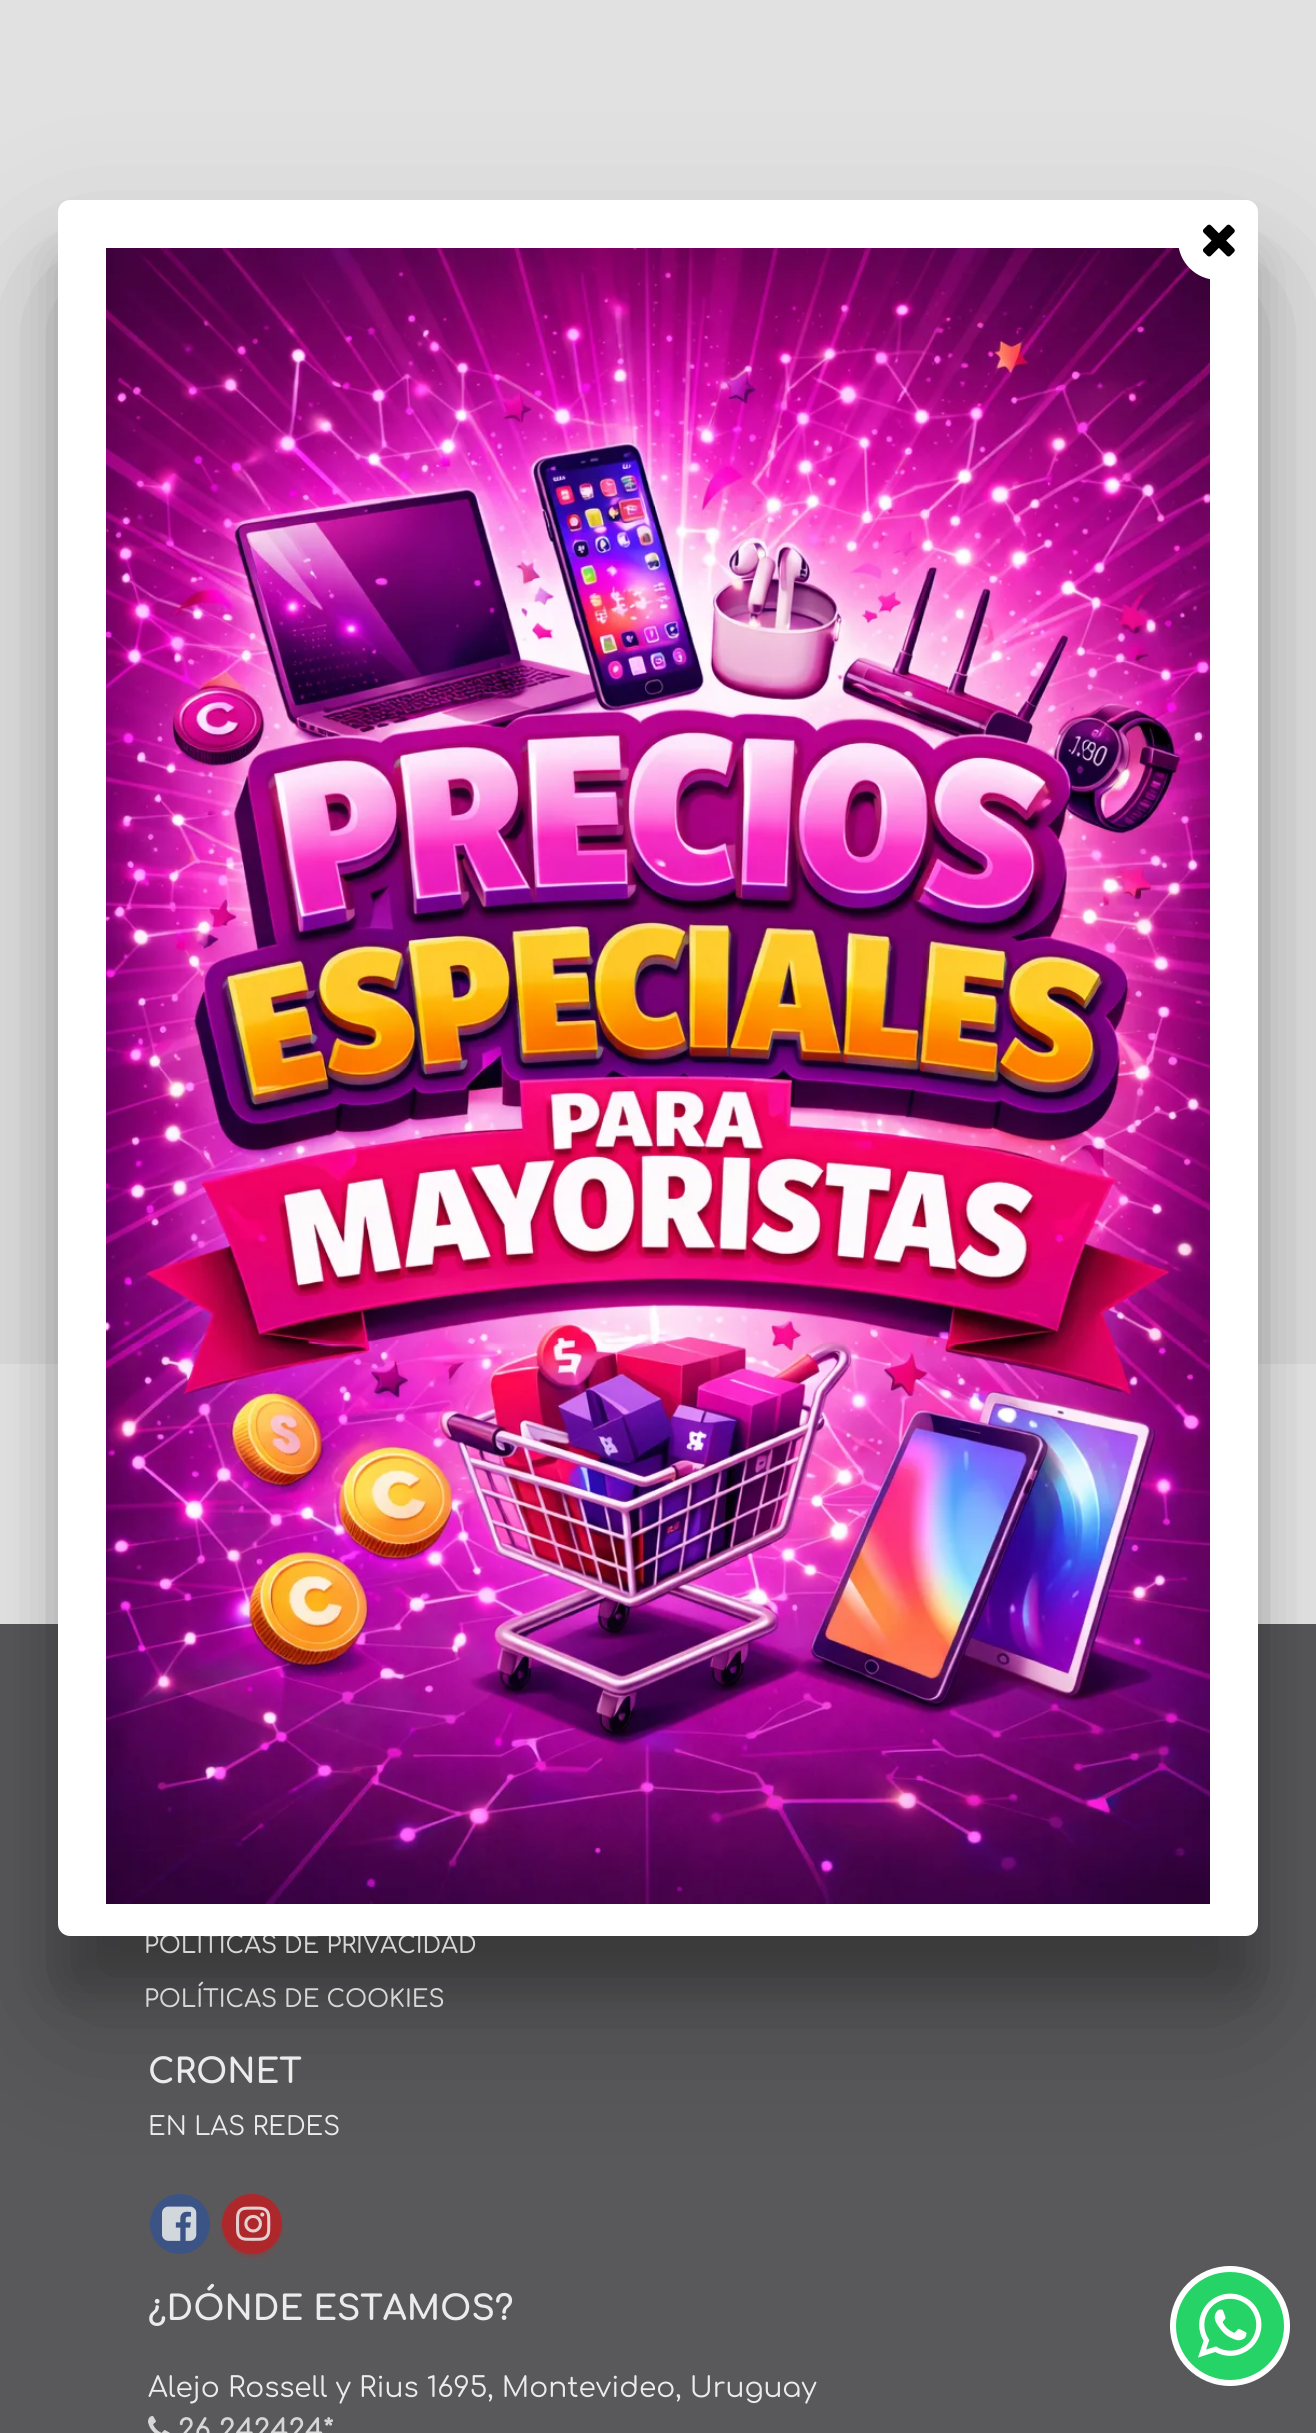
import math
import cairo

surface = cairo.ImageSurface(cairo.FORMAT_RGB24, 1316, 2433)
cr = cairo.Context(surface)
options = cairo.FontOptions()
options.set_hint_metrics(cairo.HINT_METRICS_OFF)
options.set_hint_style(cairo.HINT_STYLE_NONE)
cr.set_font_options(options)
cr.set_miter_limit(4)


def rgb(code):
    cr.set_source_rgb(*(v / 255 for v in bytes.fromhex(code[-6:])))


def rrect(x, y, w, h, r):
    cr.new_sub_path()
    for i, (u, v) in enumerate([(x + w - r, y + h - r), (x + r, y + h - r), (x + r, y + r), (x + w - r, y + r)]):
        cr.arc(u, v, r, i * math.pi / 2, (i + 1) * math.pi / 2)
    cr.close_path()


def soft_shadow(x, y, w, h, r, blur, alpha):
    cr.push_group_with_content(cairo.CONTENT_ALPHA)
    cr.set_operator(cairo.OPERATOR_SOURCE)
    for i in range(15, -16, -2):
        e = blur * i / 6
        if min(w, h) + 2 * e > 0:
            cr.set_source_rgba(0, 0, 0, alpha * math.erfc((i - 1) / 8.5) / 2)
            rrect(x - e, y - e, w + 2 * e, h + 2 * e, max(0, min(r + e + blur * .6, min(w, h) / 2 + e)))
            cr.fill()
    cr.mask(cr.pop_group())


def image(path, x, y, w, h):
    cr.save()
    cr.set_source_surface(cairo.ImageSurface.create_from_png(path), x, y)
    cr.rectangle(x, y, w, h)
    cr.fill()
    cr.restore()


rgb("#e1e1e1")
cr.paint()
rgb("#ebebeb")
cr.rectangle(0, 1364, 1316, 260)
cr.fill()
rgb("#59595b")
cr.rectangle(0, 1624, 1316, 809)
cr.fill()
rgb("#3b5385")
cr.arc(180, 2224, 30, 0, 2 * math.pi)
cr.fill()
image("img/3.png", 162, 2206, 35, 35)
rgb("#ae272b")
soft_shadow(222, 2196, 60, 60, 30, 5, 0.12)
soft_shadow(226, 2204, 52, 52, 26, 1, 0.2)
soft_shadow(222, 2198, 60, 60, 30, 2, 0.14)
rgb("#ae272b")
cr.arc(252, 2224, 30, 0, 2 * math.pi)
cr.fill()
image("img/4.png", 236, 2206, 35, 35)
rgb("#000000")
soft_shadow(58, 280, 1200, 1736, 12, 77, 0.22)
soft_shadow(58, 254, 1200, 1736, 12, 24, 0.2)
image("img/5.png", 148, 2416, 22, 17)
rgb("#ffffff")
cr.arc(1230, 2326, 60, 0, 2 * math.pi)
cr.fill()
rgb("#25d366")
cr.arc(1230, 2326, 54, 0, 2 * math.pi)
cr.fill()
image("img/6.png", 1198, 2293, 64, 65)
cr.select_font_face("Comfortaa Medium")
cr.set_font_size(24)
rgb("#d6d6d6")
cr.move_to(144, 1953)
cr.show_text("POLÍTICAS DE PRIVACIDAD")
rgb("#ffffff")
rrect(58, 200, 1200, 1736, 12)
cr.fill()
image("img/2.png", 106, 248, 1104, 1656)
cr.arc(1218, 240, 40, 0, 2 * math.pi)
cr.fill()
image("img/1.png", 1203, 224, 32, 33)
rgb("#d6d6d6")
cr.move_to(144, 2007)
cr.show_text("POLÍTICAS DE COOKIES")
cr.select_font_face("Comfortaa", cairo.FONT_SLANT_NORMAL, cairo.FONT_WEIGHT_BOLD)
cr.set_font_size(34)
rgb("#ebebeb")
cr.move_to(148, 2083)
cr.show_text("CRONET")
cr.select_font_face("Comfortaa")
cr.set_font_size(25.5)
cr.move_to(148, 2135)
cr.show_text("EN LAS REDES")
cr.select_font_face("Comfortaa", cairo.FONT_SLANT_NORMAL, cairo.FONT_WEIGHT_BOLD)
cr.set_font_size(34)
cr.move_to(148, 2320)
cr.show_text("¿DÓNDE ESTAMOS?")
cr.select_font_face("Comfortaa")
cr.set_font_size(28)
cr.move_to(148, 2397)
cr.show_text("Alejo Rossell y Rius 1695, Montevideo, Uruguay")
cr.select_font_face("Comfortaa", cairo.FONT_SLANT_NORMAL, cairo.FONT_WEIGHT_BOLD)
rgb("#d6d6d6")
cr.move_to(178, 2439)
cr.show_text("26 242424*")
surface.write_to_png("page.png")
